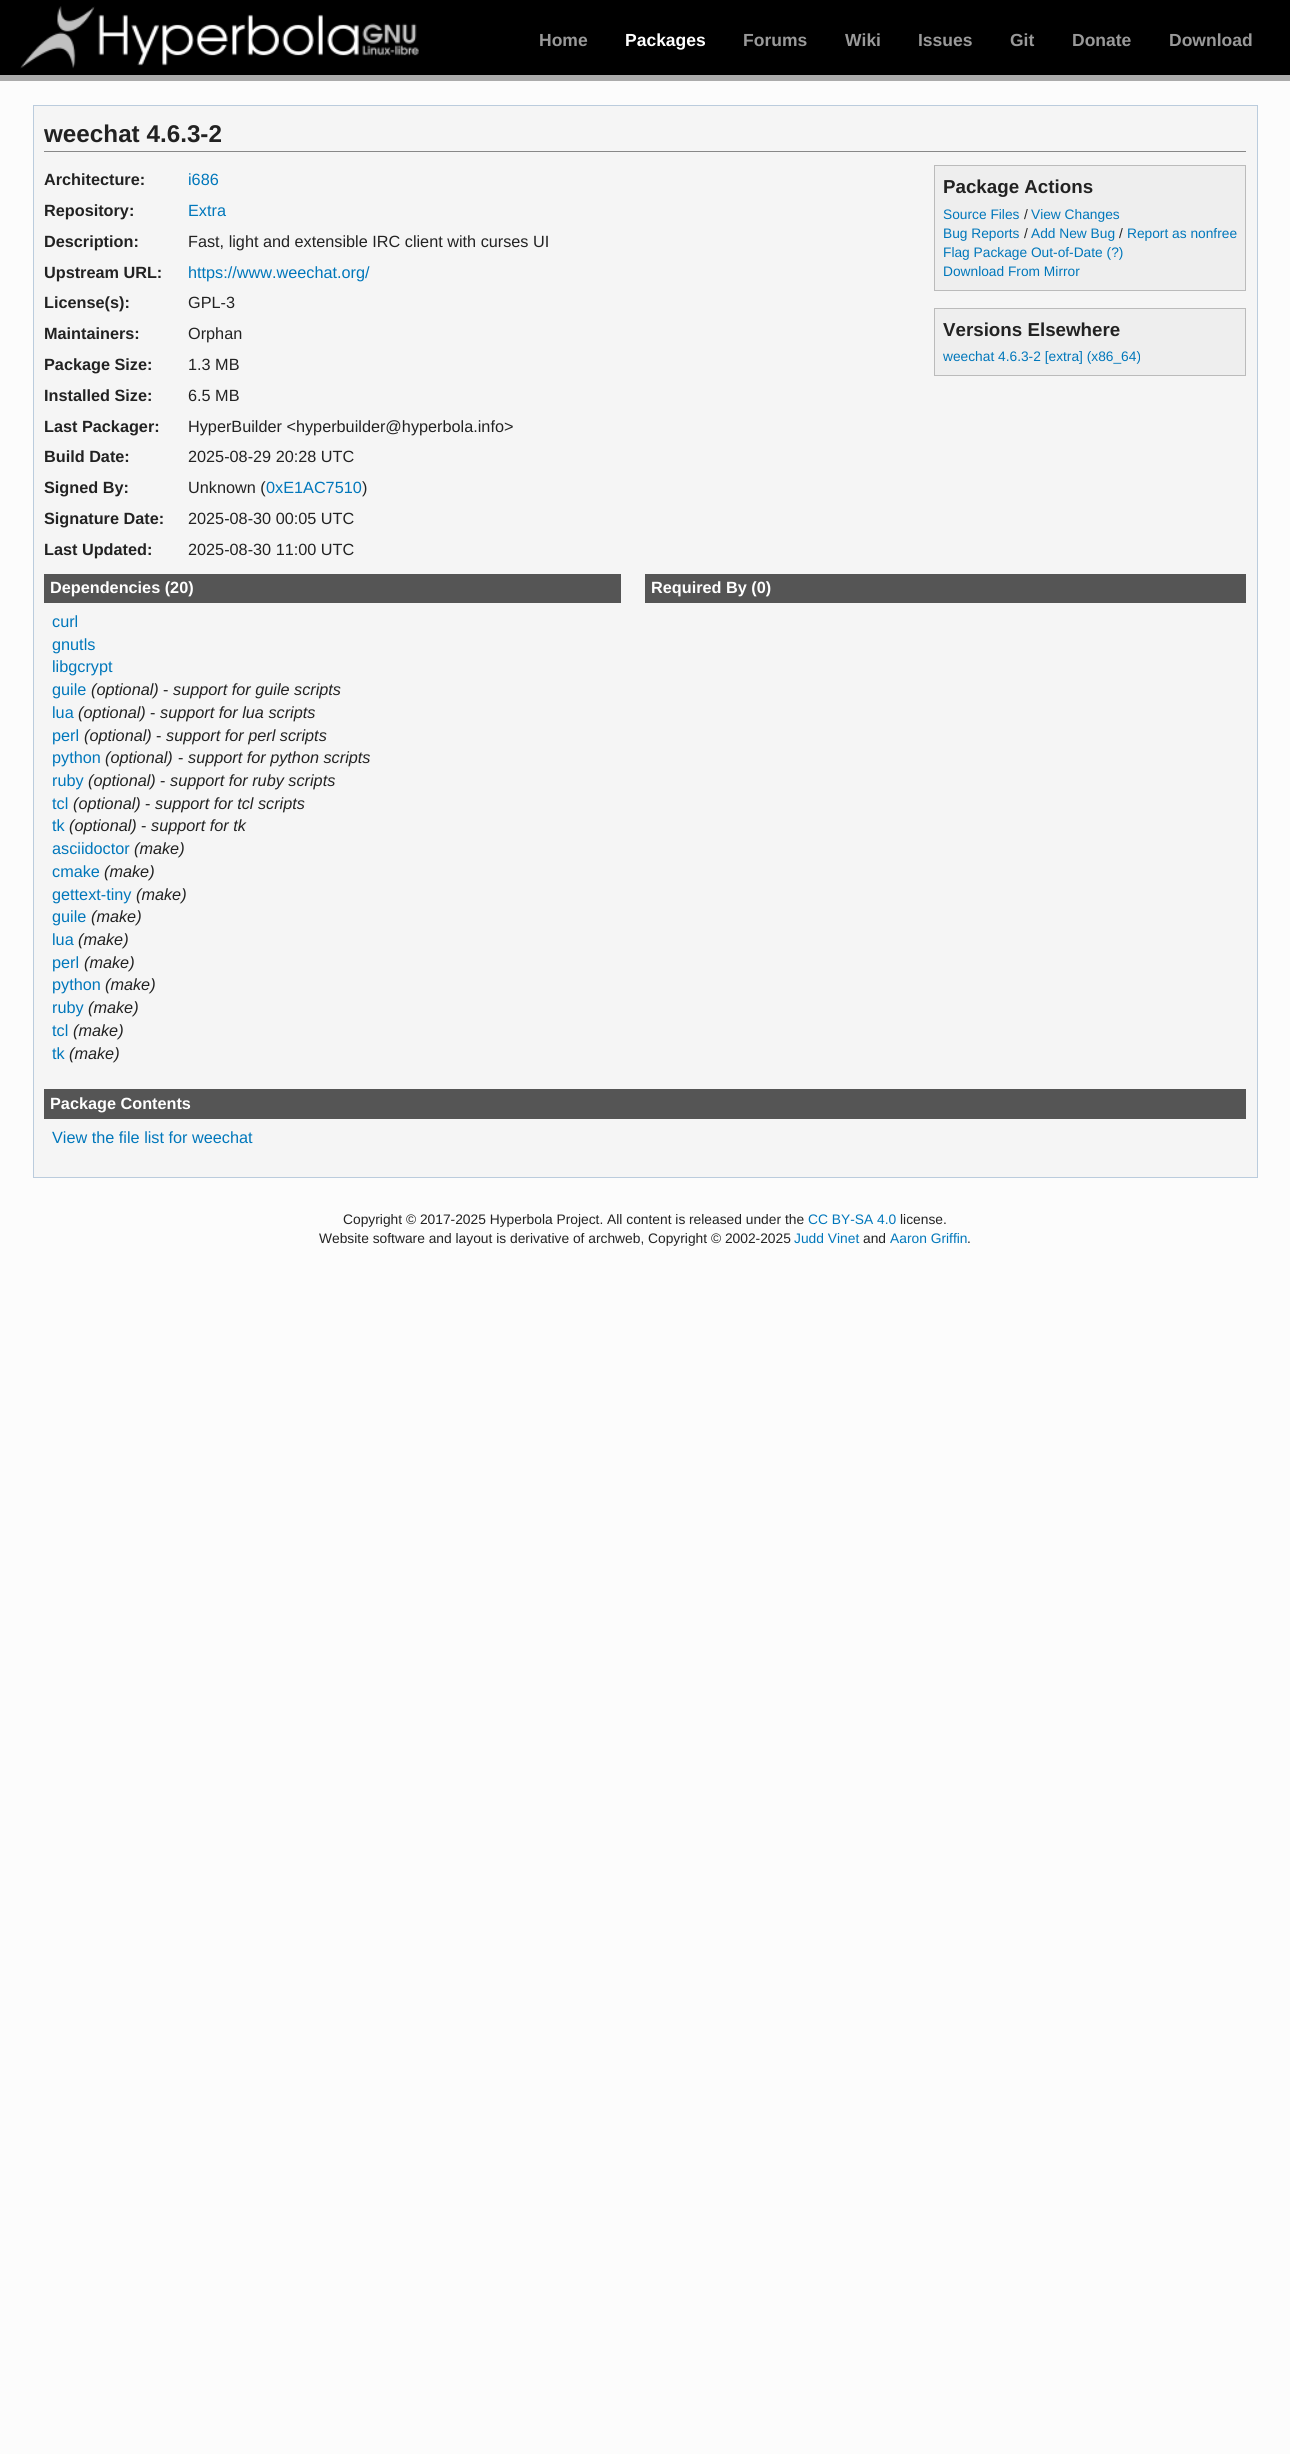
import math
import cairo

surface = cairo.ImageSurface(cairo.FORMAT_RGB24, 1290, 2454)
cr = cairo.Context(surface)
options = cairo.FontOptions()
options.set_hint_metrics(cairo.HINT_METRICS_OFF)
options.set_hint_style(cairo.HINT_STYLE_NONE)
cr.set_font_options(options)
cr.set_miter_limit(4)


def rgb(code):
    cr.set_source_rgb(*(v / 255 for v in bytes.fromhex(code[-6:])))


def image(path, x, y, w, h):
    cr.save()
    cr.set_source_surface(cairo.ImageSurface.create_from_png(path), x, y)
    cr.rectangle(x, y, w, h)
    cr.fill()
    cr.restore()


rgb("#fcfcfc")
cr.paint()
rgb("#000000")
cr.rectangle(0, 0, 1290, 75)
cr.fill()
rgb("#ababab")
cr.rectangle(0, 75, 1290, 6)
cr.fill()
image("img/1.png", 20, 6, 399, 63)
rgb("#f5f5f5")
cr.rectangle(33.5, 105.5, 1224, 1072)
cr.fill_preserve()
rgb("#bbccdd")
cr.set_line_width(1)
cr.stroke()
rgb("#888888")
cr.rectangle(44, 151, 1202, 1)
cr.fill()
rgb("#eeeeee")
cr.rectangle(934.5, 165.5, 311, 125)
cr.fill_preserve()
rgb("#bbbbbb")
cr.stroke()
rgb("#eeeeee")
cr.rectangle(934.5, 308.5, 311, 67)
cr.fill_preserve()
rgb("#bbbbbb")
cr.stroke()
for x, y, w, h, color in [
    (44, 574, 577, 29, "#555555"),
    (645, 574, 601, 29, "#555555"),
    (44, 1089, 1202, 30, "#555555"),
]:
    rgb(color)
    cr.rectangle(x, y, w, h)
    cr.fill()
cr.select_font_face("Liberation Sans", cairo.FONT_SLANT_NORMAL, cairo.FONT_WEIGHT_BOLD)
cr.set_font_size(17.5)
rgb("#999999")
cr.move_to(539, 46)
cr.show_text("Home")
rgb("#ffffff")
cr.move_to(625, 46)
cr.show_text("Packages")
rgb("#999999")
for x, y, s in [
    (743, 46, "Forums"),
    (845, 46, "Wiki"),
    (918, 46, "Issues"),
    (1010, 46, "Git"),
    (1072, 46, "Donate"),
    (1169, 46, "Download"),
]:
    cr.move_to(x, y)
    cr.show_text(s)
cr.set_font_size(24.25)
rgb("#222222")
cr.move_to(44, 142)
cr.show_text("weechat 4.6.3-2")
cr.set_font_size(16.25)
cr.move_to(44, 185)
cr.show_text("Architecture:")
cr.select_font_face("Liberation Sans")
rgb("#0077bb")
cr.move_to(188, 185)
cr.show_text("i686")
cr.select_font_face("Liberation Sans", cairo.FONT_SLANT_NORMAL, cairo.FONT_WEIGHT_BOLD)
rgb("#222222")
cr.move_to(44, 216)
cr.show_text("Repository:")
cr.select_font_face("Liberation Sans")
rgb("#0077bb")
cr.move_to(188, 216)
cr.show_text("Extra")
cr.select_font_face("Liberation Sans", cairo.FONT_SLANT_NORMAL, cairo.FONT_WEIGHT_BOLD)
rgb("#222222")
cr.move_to(44, 247)
cr.show_text("Description:")
cr.select_font_face("Liberation Sans")
cr.move_to(188, 247)
cr.show_text("Fast, light and extensible IRC client with curses UI")
cr.select_font_face("Liberation Sans", cairo.FONT_SLANT_NORMAL, cairo.FONT_WEIGHT_BOLD)
cr.move_to(44, 278)
cr.show_text("Upstream URL:")
cr.select_font_face("Liberation Sans")
rgb("#0077bb")
cr.move_to(188, 278)
cr.show_text("https://www.weechat.org/")
cr.select_font_face("Liberation Sans", cairo.FONT_SLANT_NORMAL, cairo.FONT_WEIGHT_BOLD)
rgb("#222222")
cr.move_to(44, 308)
cr.show_text("License(s):")
cr.select_font_face("Liberation Sans")
cr.move_to(188, 308)
cr.show_text("GPL-3")
cr.select_font_face("Liberation Sans", cairo.FONT_SLANT_NORMAL, cairo.FONT_WEIGHT_BOLD)
cr.move_to(44, 339)
cr.show_text("Maintainers:")
cr.select_font_face("Liberation Sans")
cr.move_to(188, 339)
cr.show_text("Orphan")
cr.select_font_face("Liberation Sans", cairo.FONT_SLANT_NORMAL, cairo.FONT_WEIGHT_BOLD)
cr.move_to(44, 370)
cr.show_text("Package Size:")
cr.select_font_face("Liberation Sans")
cr.move_to(188, 370)
cr.show_text("1.3 MB")
cr.select_font_face("Liberation Sans", cairo.FONT_SLANT_NORMAL, cairo.FONT_WEIGHT_BOLD)
cr.move_to(44, 401)
cr.show_text("Installed Size:")
cr.select_font_face("Liberation Sans")
cr.move_to(188, 401)
cr.show_text("6.5 MB")
cr.select_font_face("Liberation Sans", cairo.FONT_SLANT_NORMAL, cairo.FONT_WEIGHT_BOLD)
cr.move_to(44, 432)
cr.show_text("Last Packager:")
cr.select_font_face("Liberation Sans")
cr.move_to(188, 432)
cr.show_text("HyperBuilder <hyperbuilder@hyperbola.info>")
cr.select_font_face("Liberation Sans", cairo.FONT_SLANT_NORMAL, cairo.FONT_WEIGHT_BOLD)
cr.move_to(44, 462)
cr.show_text("Build Date:")
cr.select_font_face("Liberation Sans")
cr.move_to(188, 462)
cr.show_text("2025-08-29 20:28 UTC")
cr.select_font_face("Liberation Sans", cairo.FONT_SLANT_NORMAL, cairo.FONT_WEIGHT_BOLD)
cr.move_to(44, 493)
cr.show_text("Signed By:")
cr.select_font_face("Liberation Sans")
cr.move_to(188, 493)
cr.show_text("Unknown (")
rgb("#0077bb")
cr.move_to(266, 493)
cr.show_text("0xE1AC7510")
rgb("#222222")
cr.move_to(362, 493)
cr.show_text(")")
cr.select_font_face("Liberation Sans", cairo.FONT_SLANT_NORMAL, cairo.FONT_WEIGHT_BOLD)
cr.move_to(44, 524)
cr.show_text("Signature Date:")
cr.select_font_face("Liberation Sans")
cr.move_to(188, 524)
cr.show_text("2025-08-30 00:05 UTC")
cr.select_font_face("Liberation Sans", cairo.FONT_SLANT_NORMAL, cairo.FONT_WEIGHT_BOLD)
cr.move_to(44, 555)
cr.show_text("Last Updated:")
cr.select_font_face("Liberation Sans")
cr.move_to(188, 555)
cr.show_text("2025-08-30 11:00 UTC")
cr.select_font_face("Liberation Sans", cairo.FONT_SLANT_NORMAL, cairo.FONT_WEIGHT_BOLD)
cr.set_font_size(18.75)
cr.move_to(943, 193)
cr.show_text("Package Actions")
cr.select_font_face("Liberation Sans")
cr.set_font_size(13.75)
rgb("#0077bb")
cr.move_to(943, 219)
cr.show_text("Source Files")
rgb("#222222")
cr.move_to(1024, 219)
cr.show_text("/")
rgb("#0077bb")
cr.move_to(1031, 219)
cr.show_text("View Changes")
cr.move_to(943, 238)
cr.show_text("Bug Reports")
rgb("#222222")
cr.move_to(1024, 238)
cr.show_text("/")
rgb("#0077bb")
cr.move_to(1031, 238)
cr.show_text("Add New Bug")
rgb("#222222")
cr.move_to(1119, 238)
cr.show_text("/")
rgb("#0077bb")
for x, y, s in [
    (1127, 238, "Report as nonfree"),
    (943, 257, "Flag Package Out-of-Date (?)"),
    (943, 276, "Download From Mirror"),
]:
    cr.move_to(x, y)
    cr.show_text(s)
cr.select_font_face("Liberation Sans", cairo.FONT_SLANT_NORMAL, cairo.FONT_WEIGHT_BOLD)
cr.set_font_size(18.75)
rgb("#222222")
cr.move_to(943, 336)
cr.show_text("Versions Elsewhere")
cr.select_font_face("Liberation Sans")
cr.set_font_size(13.75)
rgb("#0077bb")
cr.move_to(943, 361)
cr.show_text("weechat 4.6.3-2 [extra] (x86_64)")
cr.select_font_face("Liberation Sans", cairo.FONT_SLANT_NORMAL, cairo.FONT_WEIGHT_BOLD)
cr.set_font_size(16.25)
rgb("#ffffff")
cr.move_to(50, 593)
cr.show_text("Dependencies (20)")
cr.select_font_face("Liberation Sans")
rgb("#0077bb")
for x, y, s in [
    (52, 627, "curl"),
    (52, 650, "gnutls"),
    (52, 672, "libgcrypt"),
    (52, 695, "guile"),
]:
    cr.move_to(x, y)
    cr.show_text(s)
cr.select_font_face("Liberation Sans", cairo.FONT_SLANT_ITALIC)
rgb("#222222")
cr.move_to(91, 695)
cr.show_text("(optional)")
cr.select_font_face("Liberation Sans")
cr.move_to(163, 695)
cr.show_text("-")
cr.select_font_face("Liberation Sans", cairo.FONT_SLANT_ITALIC)
cr.move_to(173, 695)
cr.show_text("support for guile scripts")
cr.select_font_face("Liberation Sans")
rgb("#0077bb")
cr.move_to(52, 718)
cr.show_text("lua")
cr.select_font_face("Liberation Sans", cairo.FONT_SLANT_ITALIC)
rgb("#222222")
cr.move_to(78, 718)
cr.show_text("(optional)")
cr.select_font_face("Liberation Sans")
cr.move_to(150, 718)
cr.show_text("-")
cr.select_font_face("Liberation Sans", cairo.FONT_SLANT_ITALIC)
cr.move_to(160, 718)
cr.show_text("support for lua scripts")
cr.select_font_face("Liberation Sans")
rgb("#0077bb")
cr.move_to(52, 741)
cr.show_text("perl")
cr.select_font_face("Liberation Sans", cairo.FONT_SLANT_ITALIC)
rgb("#222222")
cr.move_to(84, 741)
cr.show_text("(optional)")
cr.select_font_face("Liberation Sans")
cr.move_to(156, 741)
cr.show_text("-")
cr.select_font_face("Liberation Sans", cairo.FONT_SLANT_ITALIC)
cr.move_to(166, 741)
cr.show_text("support for perl scripts")
cr.select_font_face("Liberation Sans")
rgb("#0077bb")
cr.move_to(52, 763)
cr.show_text("python")
cr.select_font_face("Liberation Sans", cairo.FONT_SLANT_ITALIC)
rgb("#222222")
cr.move_to(105, 763)
cr.show_text("(optional)")
cr.select_font_face("Liberation Sans")
cr.move_to(178, 763)
cr.show_text("-")
cr.select_font_face("Liberation Sans", cairo.FONT_SLANT_ITALIC)
cr.move_to(188, 763)
cr.show_text("support for python scripts")
cr.select_font_face("Liberation Sans")
rgb("#0077bb")
cr.move_to(52, 786)
cr.show_text("ruby")
cr.select_font_face("Liberation Sans", cairo.FONT_SLANT_ITALIC)
rgb("#222222")
cr.move_to(88, 786)
cr.show_text("(optional)")
cr.select_font_face("Liberation Sans")
cr.move_to(160, 786)
cr.show_text("-")
cr.select_font_face("Liberation Sans", cairo.FONT_SLANT_ITALIC)
cr.move_to(170, 786)
cr.show_text("support for ruby scripts")
cr.select_font_face("Liberation Sans")
rgb("#0077bb")
cr.move_to(52, 809)
cr.show_text("tcl")
cr.select_font_face("Liberation Sans", cairo.FONT_SLANT_ITALIC)
rgb("#222222")
cr.move_to(73, 809)
cr.show_text("(optional)")
cr.select_font_face("Liberation Sans")
cr.move_to(145, 809)
cr.show_text("-")
cr.select_font_face("Liberation Sans", cairo.FONT_SLANT_ITALIC)
cr.move_to(155, 809)
cr.show_text("support for tcl scripts")
cr.select_font_face("Liberation Sans")
rgb("#0077bb")
cr.move_to(52, 831)
cr.show_text("tk")
cr.select_font_face("Liberation Sans", cairo.FONT_SLANT_ITALIC)
rgb("#222222")
cr.move_to(69, 831)
cr.show_text("(optional)")
cr.select_font_face("Liberation Sans")
cr.move_to(141, 831)
cr.show_text("-")
cr.select_font_face("Liberation Sans", cairo.FONT_SLANT_ITALIC)
cr.move_to(151, 831)
cr.show_text("support for tk")
cr.select_font_face("Liberation Sans")
rgb("#0077bb")
cr.move_to(52, 854)
cr.show_text("asciidoctor")
cr.select_font_face("Liberation Sans", cairo.FONT_SLANT_ITALIC)
rgb("#222222")
cr.move_to(134, 854)
cr.show_text("(make)")
cr.select_font_face("Liberation Sans")
rgb("#0077bb")
cr.move_to(52, 877)
cr.show_text("cmake")
cr.select_font_face("Liberation Sans", cairo.FONT_SLANT_ITALIC)
rgb("#222222")
cr.move_to(104, 877)
cr.show_text("(make)")
cr.select_font_face("Liberation Sans")
rgb("#0077bb")
cr.move_to(52, 900)
cr.show_text("gettext-tiny")
cr.select_font_face("Liberation Sans", cairo.FONT_SLANT_ITALIC)
rgb("#222222")
cr.move_to(136, 900)
cr.show_text("(make)")
cr.select_font_face("Liberation Sans")
rgb("#0077bb")
cr.move_to(52, 922)
cr.show_text("guile")
cr.select_font_face("Liberation Sans", cairo.FONT_SLANT_ITALIC)
rgb("#222222")
cr.move_to(91, 922)
cr.show_text("(make)")
cr.select_font_face("Liberation Sans")
rgb("#0077bb")
cr.move_to(52, 945)
cr.show_text("lua")
cr.select_font_face("Liberation Sans", cairo.FONT_SLANT_ITALIC)
rgb("#222222")
cr.move_to(78, 945)
cr.show_text("(make)")
cr.select_font_face("Liberation Sans")
rgb("#0077bb")
cr.move_to(52, 968)
cr.show_text("perl")
cr.select_font_face("Liberation Sans", cairo.FONT_SLANT_ITALIC)
rgb("#222222")
cr.move_to(84, 968)
cr.show_text("(make)")
cr.select_font_face("Liberation Sans")
rgb("#0077bb")
cr.move_to(52, 990)
cr.show_text("python")
cr.select_font_face("Liberation Sans", cairo.FONT_SLANT_ITALIC)
rgb("#222222")
cr.move_to(105, 990)
cr.show_text("(make)")
cr.select_font_face("Liberation Sans")
rgb("#0077bb")
cr.move_to(52, 1013)
cr.show_text("ruby")
cr.select_font_face("Liberation Sans", cairo.FONT_SLANT_ITALIC)
rgb("#222222")
cr.move_to(88, 1013)
cr.show_text("(make)")
cr.select_font_face("Liberation Sans")
rgb("#0077bb")
cr.move_to(52, 1036)
cr.show_text("tcl")
cr.select_font_face("Liberation Sans", cairo.FONT_SLANT_ITALIC)
rgb("#222222")
cr.move_to(73, 1036)
cr.show_text("(make)")
cr.select_font_face("Liberation Sans")
rgb("#0077bb")
cr.move_to(52, 1059)
cr.show_text("tk")
cr.select_font_face("Liberation Sans", cairo.FONT_SLANT_ITALIC)
rgb("#222222")
cr.move_to(69, 1059)
cr.show_text("(make)")
cr.select_font_face("Liberation Sans", cairo.FONT_SLANT_NORMAL, cairo.FONT_WEIGHT_BOLD)
rgb("#ffffff")
cr.move_to(651, 593)
cr.show_text("Required By (0)")
cr.move_to(50, 1109)
cr.show_text("Package Contents")
cr.select_font_face("Liberation Sans")
rgb("#0077bb")
cr.move_to(52, 1143)
cr.show_text("View the file list for weechat")
cr.set_font_size(13.8)
rgb("#222222")
cr.move_to(343, 1224)
cr.show_text("Copyright © 2017-2025 Hyperbola Project. All content is")
cr.move_to(689, 1224)
cr.show_text("released under the")
rgb("#0077bb")
cr.move_to(808, 1224)
cr.show_text("CC BY-SA 4.0")
rgb("#222222")
for x, y, s in [
    (900, 1224, "license."),
    (319, 1243, "Website software and layout is derivative of archweb,"),
    (648, 1243, "Copyright © 2002-2025"),
]:
    cr.move_to(x, y)
    cr.show_text(s)
rgb("#0077bb")
cr.move_to(794, 1243)
cr.show_text("Judd Vinet")
rgb("#222222")
cr.move_to(863, 1243)
cr.show_text("and")
rgb("#0077bb")
cr.move_to(890, 1243)
cr.show_text("Aaron Griffin")
rgb("#222222")
cr.move_to(967, 1243)
cr.show_text(".")
surface.write_to_png("page.png")
